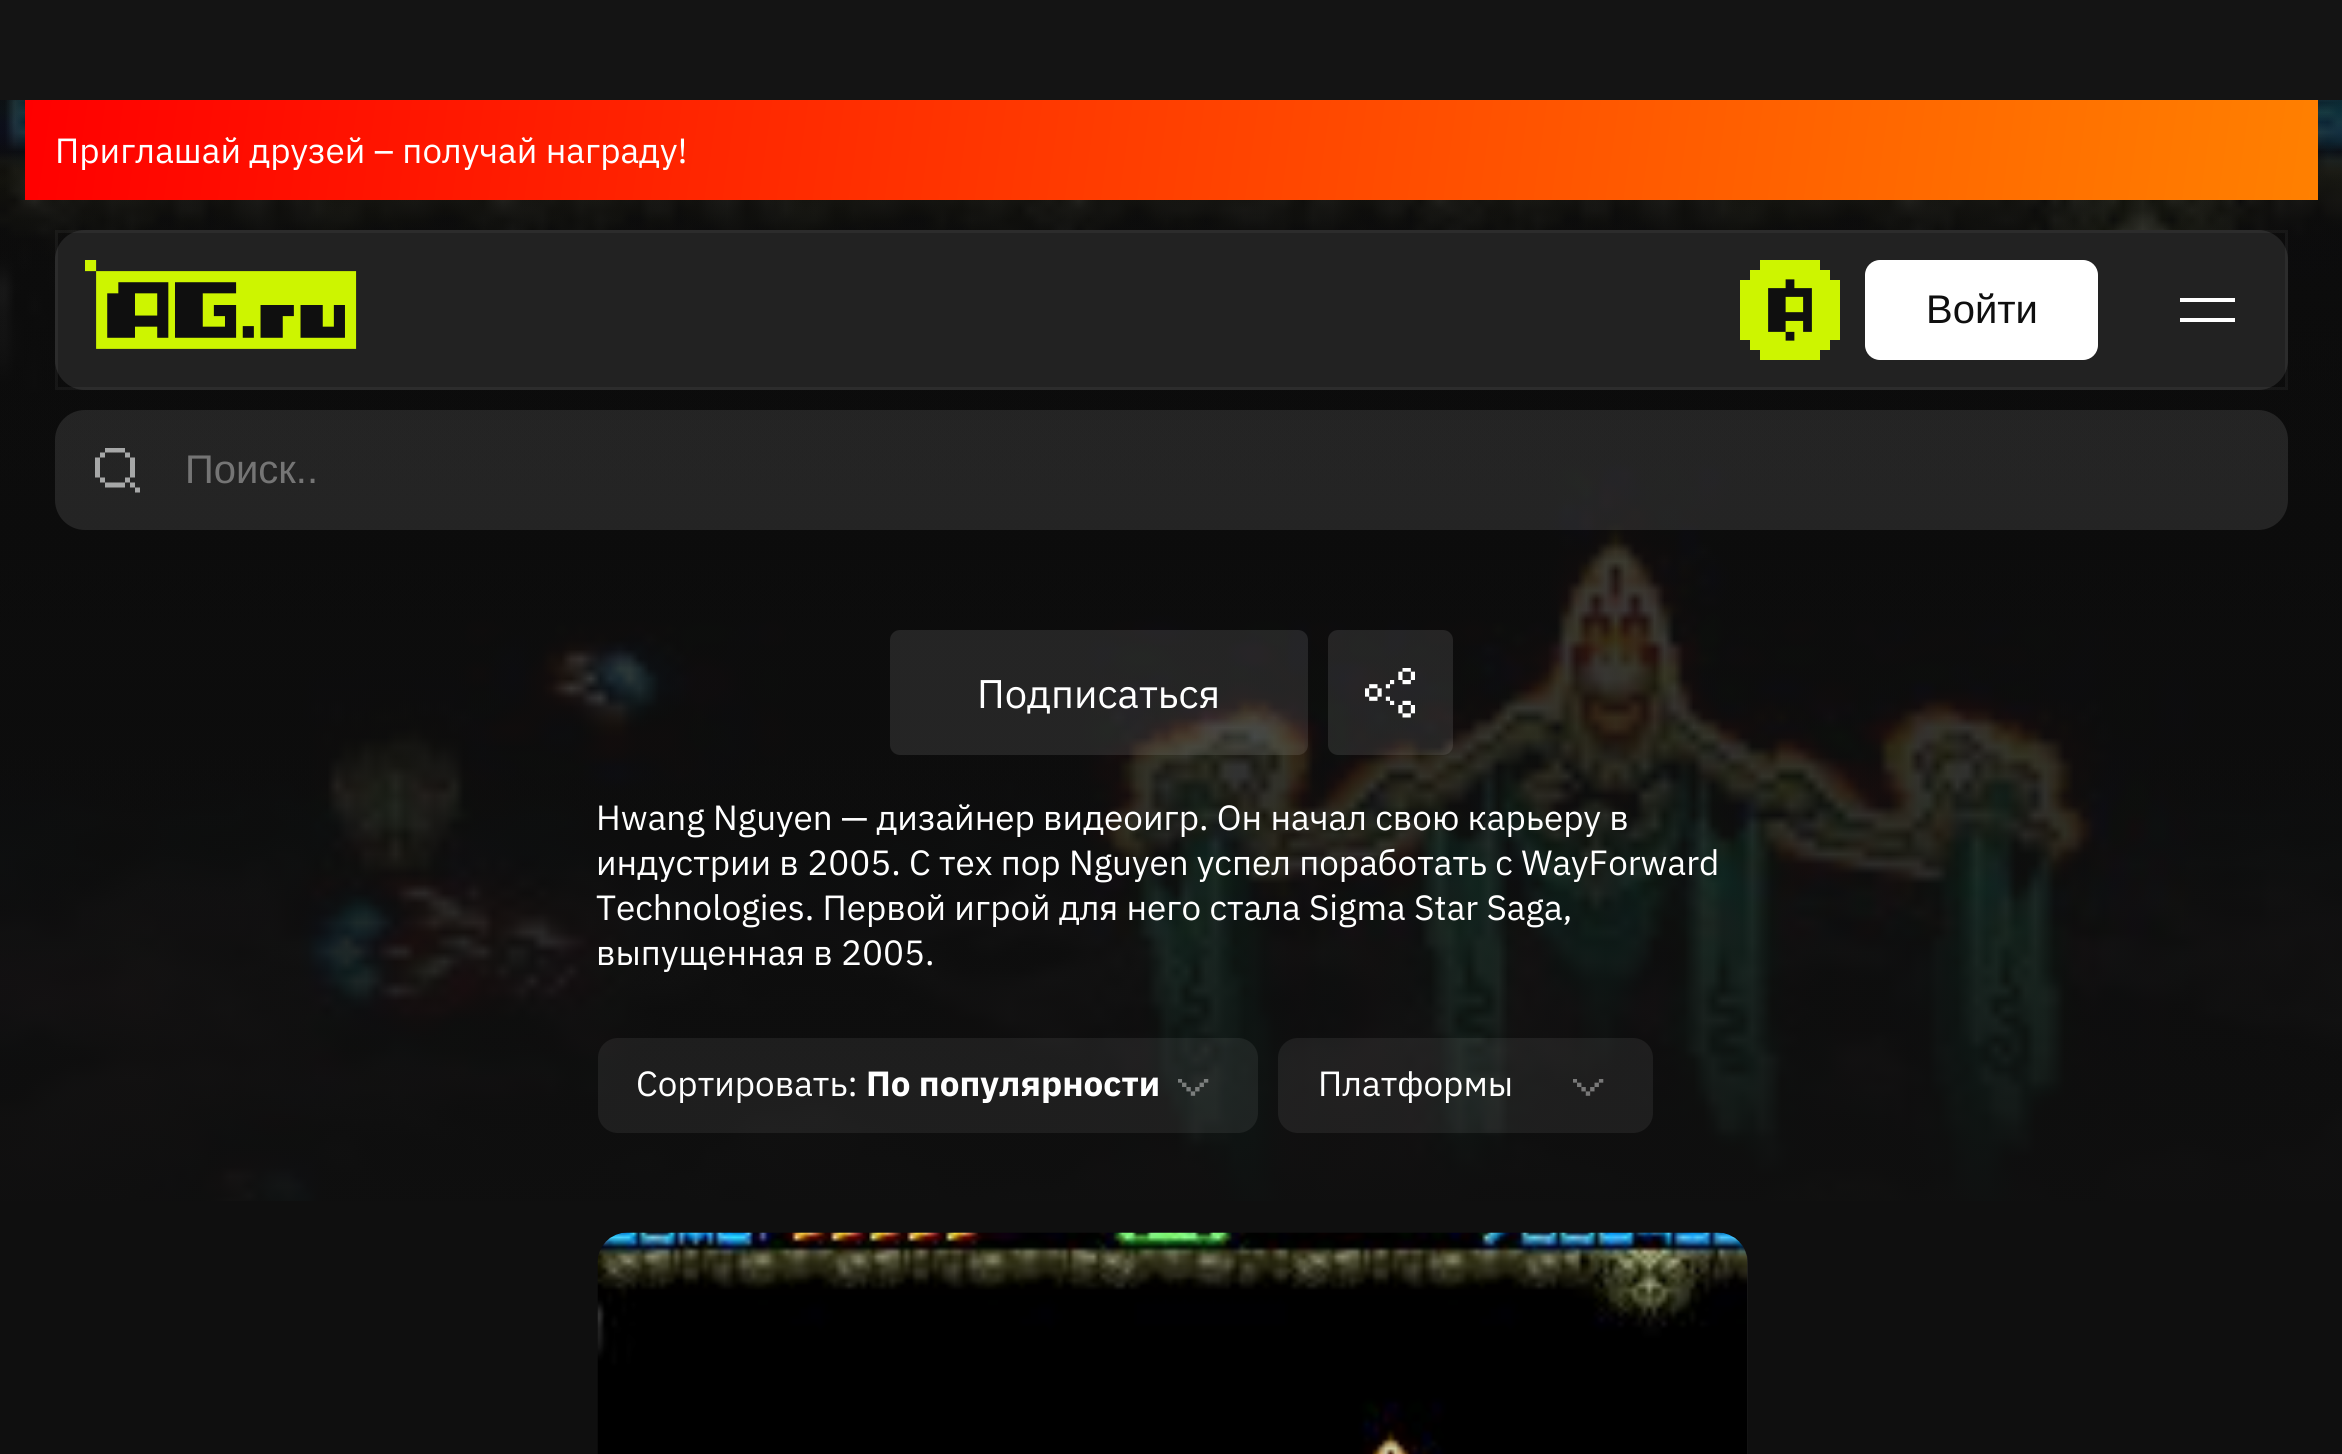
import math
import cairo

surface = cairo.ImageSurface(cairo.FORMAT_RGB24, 2342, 1454)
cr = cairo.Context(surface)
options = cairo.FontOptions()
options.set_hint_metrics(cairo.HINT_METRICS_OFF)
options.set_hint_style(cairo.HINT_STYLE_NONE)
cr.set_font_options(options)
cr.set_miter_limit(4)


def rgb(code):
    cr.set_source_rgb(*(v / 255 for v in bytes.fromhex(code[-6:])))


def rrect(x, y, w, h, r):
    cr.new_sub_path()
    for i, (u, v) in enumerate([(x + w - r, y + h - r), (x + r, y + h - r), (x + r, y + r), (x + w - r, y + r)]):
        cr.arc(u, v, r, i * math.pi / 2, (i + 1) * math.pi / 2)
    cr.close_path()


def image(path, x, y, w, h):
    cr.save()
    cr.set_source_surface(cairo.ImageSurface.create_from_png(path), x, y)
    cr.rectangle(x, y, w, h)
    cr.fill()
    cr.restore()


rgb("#0f0f0f")
cr.paint()
rgb("#141414")
cr.rectangle(0, 0, 2342, 100)
cr.fill()
image("img/1.png", 0, 100, 2342, 1101)
gradient = cairo.LinearGradient(40, -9, 2302, 309)
gradient.add_color_stop_rgba(0, 1, 0, 0, 1)
gradient.add_color_stop_rgba(1, 1, 0.502, 0, 1)
cr.set_source(gradient)
cr.rectangle(25, 100, 2293, 100)
cr.fill()
rgb("#222222")
rrect(55, 230, 2233, 160, 30)
cr.fill()
cr.rectangle(56.5, 231.5, 2230, 157)
cr.set_source_rgba(1, 1, 1, 0.05)
cr.set_line_width(3)
cr.stroke()
image("img/2.png", 85, 260, 272, 89)
image("img/3.png", 1740, 260, 100, 100)
rgb("#ffffff")
rrect(1865, 260, 233, 100, 15)
cr.fill()
cr.set_fill_rule(cairo.FILL_RULE_EVEN_ODD)
cr.new_path()
cr.move_to(2235, 302)
cr.line_to(2235, 298)
cr.line_to(2180, 298)
cr.line_to(2180, 302)
cr.close_path()
cr.move_to(2235, 322)
cr.line_to(2235, 318)
cr.line_to(2180, 318)
cr.line_to(2180, 322)
cr.close_path()
cr.fill()
cr.set_source_rgba(0.996, 1, 1, 0.1)
rrect(55, 410, 2233, 120, 30)
cr.fill()
image("img/4.png", 95, 448, 45, 45)
cr.set_source_rgba(1, 1, 1, 0.1)
rrect(890, 630, 418, 125, 10)
cr.fill()
rrect(1328, 630, 125, 125, 10)
cr.fill()
image("img/5.png", 1365, 668, 50, 50)
cr.set_source_rgba(1, 1, 1, 0.07)
rrect(598, 1038, 660, 95, 20)
cr.fill()
image("img/6.png", 1178, 1079, 31, 17)
rrect(1278, 1038, 375, 95, 20)
cr.fill()
image("img/7.png", 1573, 1079, 31, 17)
rgb("#202020")
rrect(598, 1233, 1150, 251, 30)
cr.fill()
image("img/8.png", 597, 1232, 1151, 222)
gradient = cairo.LinearGradient(1173, 1233, 1173, 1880)
gradient.add_color_stop_rgba(0, 0, 0, 0, 0)
gradient.add_color_stop_rgba(1, 0, 0, 0, 0.6)
cr.set_source(gradient)
cr.rectangle(598, 1256, 1150, 198)
cr.fill()
cr.select_font_face("IBM Plex Sans")
cr.set_font_size(35)
rgb("#ffffff")
cr.move_to(55, 163)
cr.show_text("Приглашай друзей – получай награду!")
cr.select_font_face("Liberation Sans")
cr.set_font_size(40)
rgb("#0f0f0f")
cr.move_to(1926, 323)
cr.show_text("Войти")
rgb("#757575")
cr.move_to(185, 483)
cr.show_text("Поиск..")
cr.select_font_face("IBM Plex Sans")
rgb("#ffffff")
cr.move_to(977, 708)
cr.show_text("Подписаться")
cr.set_font_size(35)
for x, y, s in [
    (596, 830, "Hwang Nguyen — дизайнер видеоигр. Он начал свою карьеру в"),
    (596, 875, "индустрии в 2005. С тех пор Nguyen успел поработать с WayForward"),
    (596, 920, "Technologies. Первой игрой для него стала Sigma Star Saga,"),
    (596, 965, "выпущенная в 2005."),
    (636, 1096, "Сортировать:"),
]:
    cr.move_to(x, y)
    cr.show_text(s)
cr.select_font_face("IBM Plex Sans", cairo.FONT_SLANT_NORMAL, cairo.FONT_WEIGHT_BOLD)
cr.move_to(866, 1096)
cr.show_text("По популярности")
cr.select_font_face("IBM Plex Sans")
cr.move_to(1318, 1096)
cr.show_text("Платформы")
surface.write_to_png("page.png")
